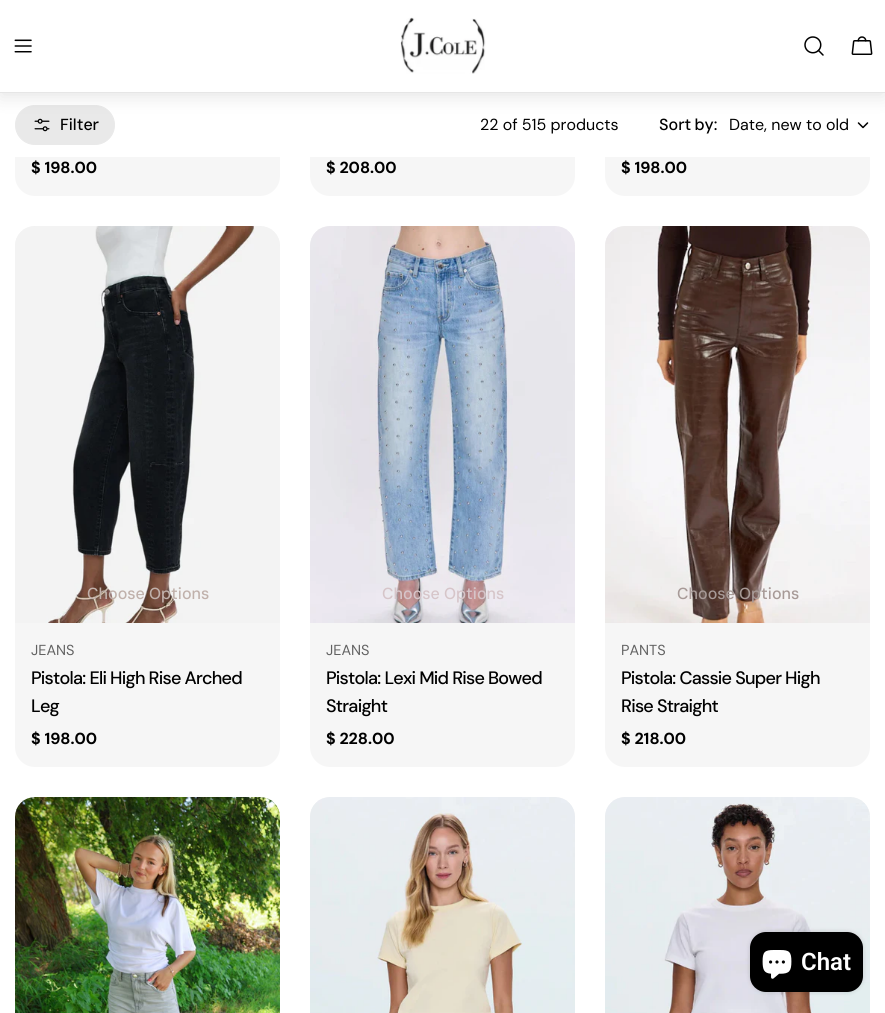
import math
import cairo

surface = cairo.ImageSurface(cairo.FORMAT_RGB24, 885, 1013)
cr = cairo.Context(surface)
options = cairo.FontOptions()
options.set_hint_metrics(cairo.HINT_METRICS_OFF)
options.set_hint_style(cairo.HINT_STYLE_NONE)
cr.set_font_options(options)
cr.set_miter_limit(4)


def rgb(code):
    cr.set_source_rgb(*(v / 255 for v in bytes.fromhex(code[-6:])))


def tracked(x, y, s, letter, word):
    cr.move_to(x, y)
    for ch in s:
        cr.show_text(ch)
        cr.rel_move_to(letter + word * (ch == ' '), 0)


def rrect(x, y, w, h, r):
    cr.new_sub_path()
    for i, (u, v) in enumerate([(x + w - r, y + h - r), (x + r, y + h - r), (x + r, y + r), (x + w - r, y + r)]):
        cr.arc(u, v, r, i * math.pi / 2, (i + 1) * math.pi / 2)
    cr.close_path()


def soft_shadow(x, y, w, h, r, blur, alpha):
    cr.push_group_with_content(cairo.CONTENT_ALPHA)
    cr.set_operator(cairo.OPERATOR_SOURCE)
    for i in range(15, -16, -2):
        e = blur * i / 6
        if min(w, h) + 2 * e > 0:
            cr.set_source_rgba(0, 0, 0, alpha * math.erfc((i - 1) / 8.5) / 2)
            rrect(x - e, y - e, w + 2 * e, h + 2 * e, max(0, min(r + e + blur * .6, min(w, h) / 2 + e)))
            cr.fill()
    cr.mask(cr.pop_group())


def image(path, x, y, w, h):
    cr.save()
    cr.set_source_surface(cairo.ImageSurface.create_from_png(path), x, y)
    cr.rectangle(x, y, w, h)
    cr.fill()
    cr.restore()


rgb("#ffffff")
cr.paint()
rgb("#f6f6f6")
rrect(15, -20, 265, 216, 20)
cr.fill()
rrect(310, -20, 265, 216, 20)
cr.fill()
rrect(605, -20, 265, 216, 20)
cr.fill()
rgb("#ffffff")
cr.rectangle(15, 93, 855, 64)
cr.fill()
rgb("#e9e9e9")
rrect(15.5, 105.5, 99, 39, 19.5)
cr.fill_preserve()
cr.set_line_width(1)
cr.stroke()
image("img/5.png", 34, 118, 16, 14)
cr.new_path()
cr.move_to(867.5, 123)
cr.line_to(863, 127.5)
cr.line_to(858.5, 123)
rgb("#000000")
cr.set_line_width(1.5)
cr.set_line_cap(cairo.LINE_CAP_ROUND)
cr.set_line_join(cairo.LINE_JOIN_ROUND)
cr.stroke()
rgb("#000000")
soft_shadow(0, 4, 885, 93, 0, 9, 0.1)
rgb("#e6e6e6")
cr.rectangle(0, 92, 885, 1)
cr.fill()
rgb("#ffffff")
cr.rectangle(0, 0, 885, 92)
cr.fill()
image("img/1.png", 14, 39, 18, 14)
image("img/2.png", 400, 17, 86, 57)
image("img/3.png", 804, 36, 20, 20)
image("img/4.png", 851, 36, 22, 19)
rgb("#f6f6f6")
rrect(15, 226, 265, 541, 20)
cr.fill()
image("img/6.png", 15, 226, 265, 397)
rrect(310, 226, 265, 541, 20)
cr.fill()
image("img/7.png", 310, 226, 265, 397)
rrect(605, 226, 265, 541, 20)
cr.fill()
image("img/8.png", 605, 226, 265, 397)
rrect(15, 797, 265, 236, 20)
cr.fill()
image("img/9.png", 15, 797, 265, 216)
rrect(310, 797, 265, 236, 20)
cr.fill()
image("img/10.png", 310, 797, 265, 216)
rrect(605, 797, 265, 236, 20)
cr.fill()
image("img/11.png", 605, 797, 265, 216)
rgb("#000000")
soft_shadow(750, 932, 113, 60, 16, 2.5, 0.15)
rgb("#000000")
rrect(750, 932, 113, 60, 16)
cr.fill()
image("img/12.png", 762, 950, 30, 29)
cr.select_font_face("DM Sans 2 Medium")
cr.set_font_size(16)
cr.move_to(60, 130)
cr.show_text("Filter")
cr.select_font_face("DM Sans 2")
cr.move_to(480, 130)
cr.show_text("22 of 515 products")
cr.select_font_face("DM Sans 2 Medium")
tracked(659, 130, "Sort by:", 0, -1)
cr.select_font_face("DM Sans 2")
cr.move_to(729, 130)
cr.show_text("Date, new to old")
cr.select_font_face("DM Sans", cairo.FONT_SLANT_NORMAL, cairo.FONT_WEIGHT_BOLD)
for x, y, s in [
    (31, 173, "$ 198.00"),
    (326, 173, "$ 208.00"),
    (621, 173, "$ 198.00"),
]:
    cr.move_to(x, y)
    cr.show_text(s)
cr.select_font_face("DM Sans 2 Medium")
rgb("#c0b1ab")
cr.move_to(87, 599)
cr.show_text("Choose Options")
cr.select_font_face("DM Sans")
cr.set_font_size(14.5)
rgb("#626262")
cr.move_to(31, 655)
cr.show_text("JEANS")
cr.select_font_face("DM Sans Medium")
cr.set_font_size(18)
rgb("#000000")
tracked(31, 684, "Pistola: Eli High Rise Arched", -0.75, 0)
tracked(31, 712, "Leg", -0.75, 0)
cr.select_font_face("DM Sans", cairo.FONT_SLANT_NORMAL, cairo.FONT_WEIGHT_BOLD)
cr.set_font_size(16)
cr.move_to(31, 744)
cr.show_text("$ 198.00")
cr.select_font_face("DM Sans 2 Medium")
rgb("#d6c5c9")
cr.move_to(382, 599)
cr.show_text("Choose Options")
cr.select_font_face("DM Sans")
cr.set_font_size(14.5)
rgb("#626262")
cr.move_to(326, 655)
cr.show_text("JEANS")
cr.select_font_face("DM Sans Medium")
cr.set_font_size(18)
rgb("#000000")
tracked(326, 684, "Pistola: Lexi Mid Rise Bowed", -0.75, 0)
tracked(326, 712, "Straight", -0.75, 0)
cr.select_font_face("DM Sans", cairo.FONT_SLANT_NORMAL, cairo.FONT_WEIGHT_BOLD)
cr.set_font_size(16)
cr.move_to(326, 744)
cr.show_text("$ 228.00")
cr.select_font_face("DM Sans 2 Medium")
rgb("#a79a97")
cr.move_to(677, 599)
cr.show_text("Choose Options")
cr.select_font_face("DM Sans")
cr.set_font_size(14.5)
rgb("#626262")
cr.move_to(621, 655)
cr.show_text("PANTS")
cr.select_font_face("DM Sans Medium")
cr.set_font_size(18)
rgb("#000000")
tracked(621, 684, "Pistola: Cassie Super High", -0.75, 0)
tracked(621, 712, "Rise Straight", -0.75, 0)
cr.select_font_face("DM Sans", cairo.FONT_SLANT_NORMAL, cairo.FONT_WEIGHT_BOLD)
cr.set_font_size(16)
cr.move_to(621, 744)
cr.show_text("$ 218.00")
cr.select_font_face("Roboto SemiBold")
cr.set_font_size(24)
rgb("#ffffff")
cr.move_to(801, 970)
cr.show_text("Chat")
surface.write_to_png("page.png")
